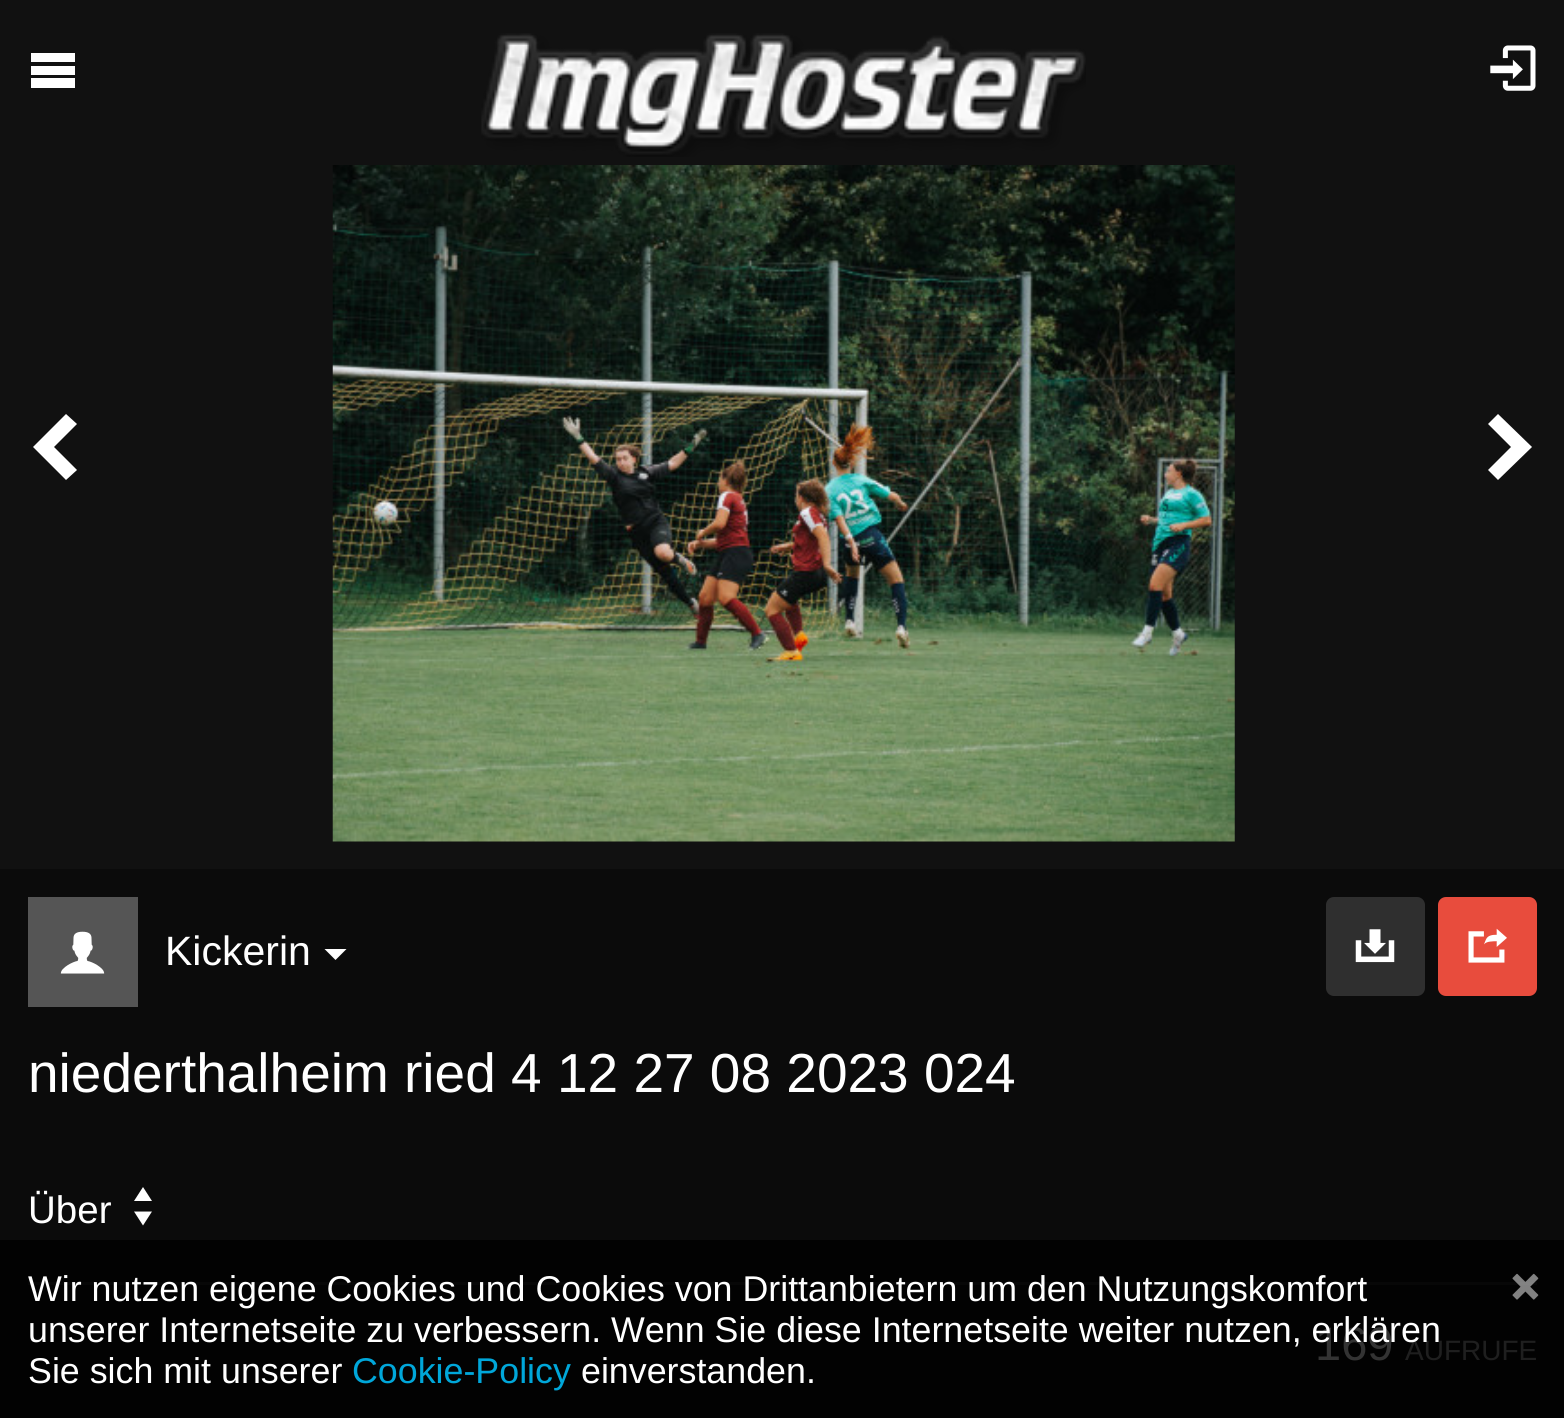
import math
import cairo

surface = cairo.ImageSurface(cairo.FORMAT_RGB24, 1564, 1418)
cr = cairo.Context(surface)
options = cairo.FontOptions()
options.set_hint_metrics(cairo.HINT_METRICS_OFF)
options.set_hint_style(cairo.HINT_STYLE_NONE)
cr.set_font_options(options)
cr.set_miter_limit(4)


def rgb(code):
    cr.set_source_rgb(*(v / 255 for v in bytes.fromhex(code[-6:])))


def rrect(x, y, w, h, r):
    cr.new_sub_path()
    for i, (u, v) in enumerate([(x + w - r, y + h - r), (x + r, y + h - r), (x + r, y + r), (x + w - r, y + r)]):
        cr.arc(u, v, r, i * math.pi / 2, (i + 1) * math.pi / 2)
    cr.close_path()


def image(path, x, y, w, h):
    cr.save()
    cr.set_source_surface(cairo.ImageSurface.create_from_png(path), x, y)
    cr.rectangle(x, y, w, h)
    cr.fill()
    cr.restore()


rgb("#0b0b0b")
cr.paint()
rgb("#020202")
cr.rectangle(0, 1240, 1564, 178)
cr.fill()
rgb("#111111")
cr.rectangle(0, 0, 1564, 869)
cr.fill()
rgb("#ffffff")
cr.new_path()
cr.move_to(31, 53)
cr.line_to(75, 53)
cr.line_to(75, 62)
cr.line_to(31, 62)
cr.close_path()
cr.move_to(31, 66)
cr.line_to(75, 66)
cr.line_to(75, 75)
cr.line_to(31, 75)
cr.close_path()
cr.move_to(31, 78)
cr.line_to(75, 78)
cr.line_to(75, 88)
cr.line_to(31, 88)
cr.close_path()
cr.fill()
image("img/1.png", 481, 33, 605, 124)
image("img/2.png", 1490, 45, 46, 46)
image("img/3.png", 332, 165, 903, 677)
cr.new_path()
cr.move_to(66, 414)
cr.line_to(33, 447)
cr.line_to(66, 480)
cr.line_to(77, 470)
cr.line_to(54, 447)
cr.line_to(77, 424)
cr.close_path()
cr.fill()
cr.new_path()
cr.move_to(1498, 414)
cr.line_to(1532, 447)
cr.line_to(1498, 480)
cr.line_to(1488, 470)
cr.line_to(1511, 447)
cr.line_to(1488, 424)
cr.close_path()
cr.fill()
rgb("#555555")
cr.rectangle(28, 897, 110, 110)
cr.fill()
image("img/4.png", 60, 931, 45, 43)
rgb("#ffffff")
cr.new_path()
cr.move_to(324.5, 949)
cr.line_to(346.5, 949)
cr.line_to(335.5, 960)
cr.close_path()
cr.fill()
rgb("#2f2f2f")
rrect(1326, 897, 99, 99, 8)
cr.fill()
image("img/5.png", 1355, 929, 40, 34)
rgb("#e84c3d")
rrect(1438, 897, 99, 99, 8)
cr.fill()
image("img/6.png", 1468, 928, 39, 35)
rgb("#070707")
cr.rectangle(28, 1282, 1509, 3)
cr.fill()
rgb("#ffffff")
cr.new_path()
cr.move_to(143, 1187)
cr.line_to(134, 1201)
cr.line_to(152, 1201)
cr.close_path()
cr.move_to(143, 1225.5)
cr.line_to(152, 1211.5)
cr.line_to(134, 1211.5)
cr.close_path()
cr.fill()
image("img/7.png", 1512, 1273, 27, 27)
cr.select_font_face("Liberation Sans")
cr.set_font_size(41)
cr.move_to(165, 965)
cr.show_text("Kickerin")
cr.set_font_size(55)
cr.move_to(28, 1092)
cr.show_text("niederthalheim ried 4 12 27 08 2023 024")
cr.set_font_size(38.5)
cr.move_to(28, 1223)
cr.show_text("Über")
cr.set_font_size(47)
rgb("#333333")
cr.move_to(1315, 1360)
cr.show_text("169")
cr.set_font_size(28)
rgb("#1f1f1f")
cr.move_to(1405, 1360)
cr.show_text("AUFRUFE")
cr.set_font_size(35.8)
rgb("#ffffff")
for x, y, s in [
    (28, 1301, "Wir nutzen eigene Cookies und Cookies von Drittanbietern um den Nutzungskomfort"),
    (28, 1342, "unserer Internetseite zu verbessern. Wenn Sie diese Internetseite weiter nutzen, erklären"),
    (28, 1383, "Sie sich mit unserer"),
]:
    cr.move_to(x, y)
    cr.show_text(s)
rgb("#00a7da")
cr.move_to(352, 1383)
cr.show_text("Cookie-Policy")
rgb("#ffffff")
cr.move_to(581, 1383)
cr.show_text("einverstanden.")
surface.write_to_png("page.png")
